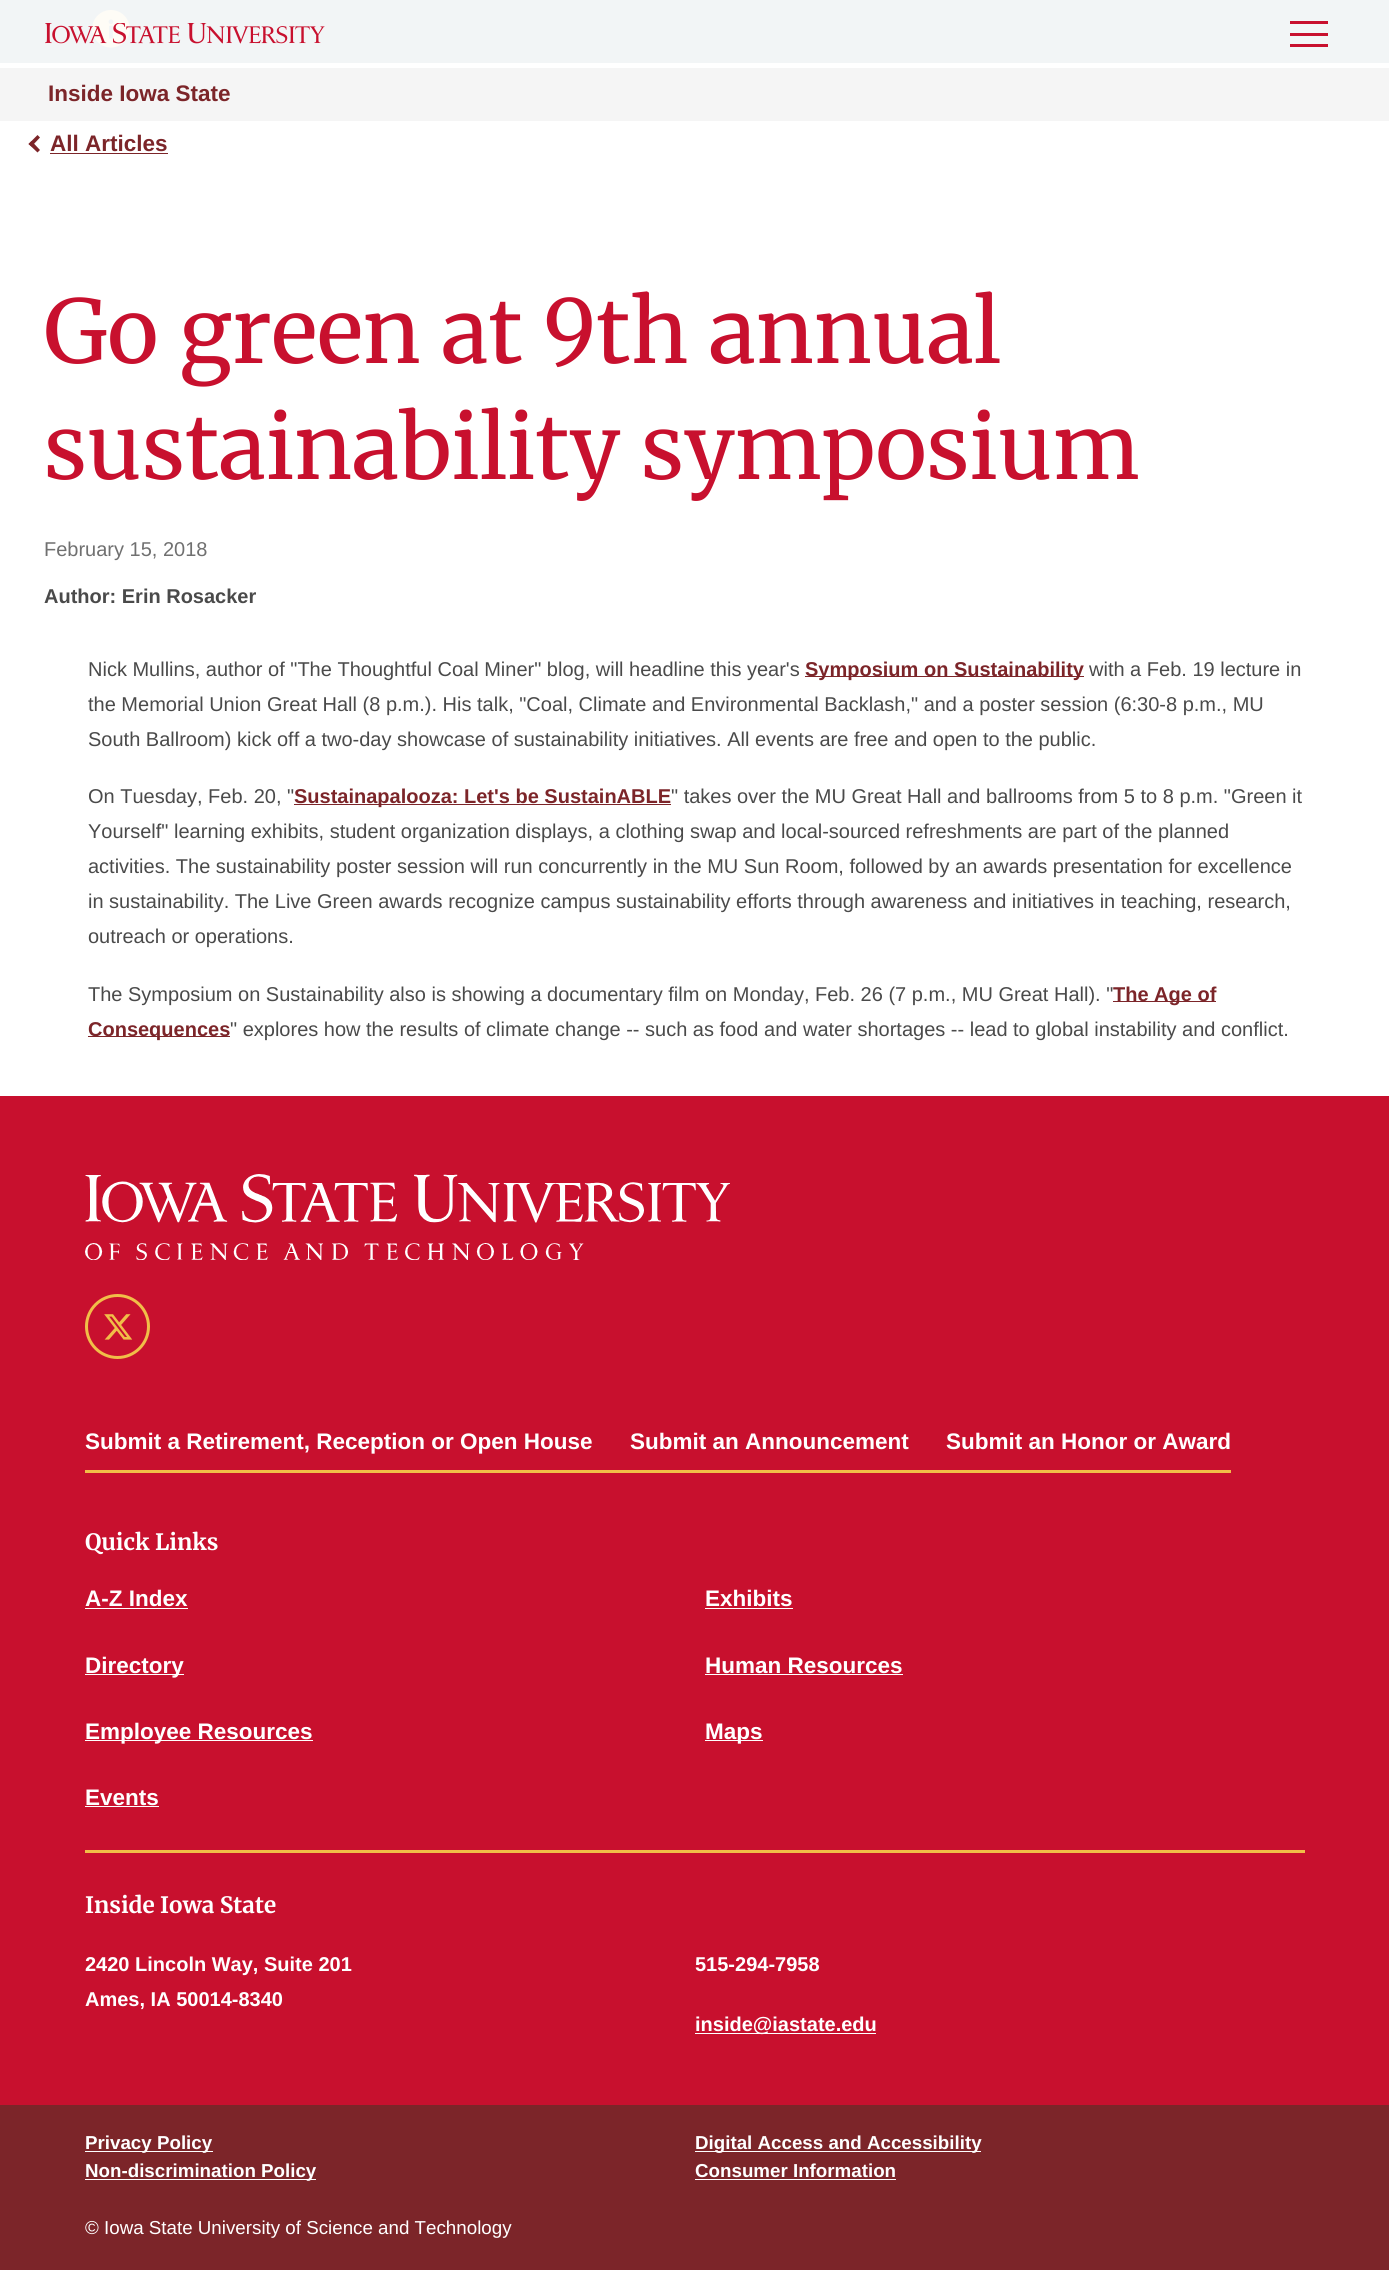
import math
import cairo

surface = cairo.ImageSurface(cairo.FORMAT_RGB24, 1389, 2270)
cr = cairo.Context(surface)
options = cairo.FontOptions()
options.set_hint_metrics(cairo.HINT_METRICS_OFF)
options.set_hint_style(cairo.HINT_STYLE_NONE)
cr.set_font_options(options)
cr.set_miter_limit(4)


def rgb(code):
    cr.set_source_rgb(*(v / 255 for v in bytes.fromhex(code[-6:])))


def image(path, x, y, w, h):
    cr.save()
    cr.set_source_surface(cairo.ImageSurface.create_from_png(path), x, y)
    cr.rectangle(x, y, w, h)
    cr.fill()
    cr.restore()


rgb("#ffffff")
cr.paint()
for x, y, w, h, color in [
    (0, 0, 1389, 63, "#f2f5f6"),
    (1290, 21, 38, 3, "#c8102e"),
    (1290, 33, 38, 3, "#c8102e"),
    (1290, 44, 38, 3, "#c8102e"),
]:
    rgb(color)
    cr.rectangle(x, y, w, h)
    cr.fill()
image("img/2.png", 92, 10, 38, 38)
image("img/1.png", 45, 23, 280, 21)
rgb("#f5f5f5")
cr.rectangle(0, 68, 1389, 53)
cr.fill()
rgb("#7c2529")
cr.new_path()
cr.move_to(31.5, 141)
cr.line_to(40, 150)
cr.line_to(37.5, 152.5)
cr.line_to(28.5, 144)
cr.close_path()
cr.fill()
cr.new_path()
cr.move_to(37.5, 135)
cr.line_to(40, 137.5)
cr.line_to(31.5, 146.5)
cr.line_to(28.5, 144)
cr.close_path()
cr.fill()
for x, y, w, h, color in [
    (50, 153, 118, 1, "#7c2529"),
    (805, 676, 279, 1, "#7c2529"),
    (294, 804, 377, 1, "#7c2529"),
    (1113, 1001, 103, 1, "#7c2529"),
    (88, 1036, 142, 1, "#7c2529"),
    (0, 1096, 1389, 1009, "#c8102e"),
]:
    rgb(color)
    cr.rectangle(x, y, w, h)
    cr.fill()
image("img/3.png", 85, 1174, 645, 86)
cr.arc(117.5, 1326.5, 31, 0, 2 * math.pi)
rgb("#f1be48")
cr.set_line_width(3)
cr.stroke()
image("img/4.png", 104, 1314, 29, 26)
for x, y, w, h, color in [
    (85, 1470, 1146, 3, "#f1be48"),
    (85, 1850, 1220, 3, "#f1be48"),
    (85, 1608, 103, 1, "#ffffff"),
    (705, 1608, 88, 1, "#ffffff"),
    (85, 1674, 99, 1, "#ffffff"),
    (705, 1674, 198, 1, "#ffffff"),
    (85, 1740, 228, 1, "#ffffff"),
    (705, 1740, 58, 1, "#ffffff"),
    (85, 1806, 74, 1, "#ffffff"),
    (695, 2033, 181, 1, "#ffffff"),
    (0, 2105, 1389, 165, "#7c2529"),
    (85, 2151, 128, 1, "#ffffff"),
    (695, 2151, 286, 1, "#ffffff"),
    (85, 2179, 231, 1, "#ffffff"),
    (695, 2179, 201, 1, "#ffffff"),
]:
    rgb(color)
    cr.rectangle(x, y, w, h)
    cr.fill()
cr.select_font_face("Liberation Sans", cairo.FONT_SLANT_NORMAL, cairo.FONT_WEIGHT_BOLD)
cr.set_font_size(22.5)
rgb("#7c2529")
cr.move_to(48, 101)
cr.show_text("Inside Iowa State")
cr.move_to(50, 151)
cr.show_text("All Articles")
cr.select_font_face("Merriweather")
cr.set_font_size(87.5)
rgb("#c8102e")
cr.move_to(44, 363)
cr.show_text("Go green at 9th annual")
cr.move_to(44, 479)
cr.show_text("sustainability symposium")
cr.select_font_face("Liberation Sans")
cr.set_font_size(20)
rgb("#707070")
cr.move_to(44, 556)
cr.show_text("February 15, 2018")
cr.select_font_face("Liberation Sans", cairo.FONT_SLANT_NORMAL, cairo.FONT_WEIGHT_BOLD)
rgb("#4a4a4a")
cr.move_to(44, 603)
cr.show_text("Author: Erin Rosacker")
cr.select_font_face("Liberation Sans")
cr.move_to(88, 676)
cr.show_text("Nick Mullins, author of \"The Thoughtful Coal Miner\" blog, will headline this year's")
cr.select_font_face("Liberation Sans", cairo.FONT_SLANT_NORMAL, cairo.FONT_WEIGHT_BOLD)
rgb("#7c2529")
cr.move_to(805, 676)
cr.show_text("Symposium on Sustainability")
cr.select_font_face("Liberation Sans")
rgb("#4a4a4a")
for x, y, s in [
    (1089, 676, "with a Feb. 19 lecture in"),
    (88, 711, "the Memorial Union Great Hall (8 p.m.). His talk, \"Coal, Climate and Environmental Backlash,\" and a poster session (6:30-8 p.m., MU"),
    (88, 746, "South Ballroom) kick off a two-day showcase of sustainability initiatives. All events are free and open to the public."),
    (88, 803, "On Tuesday, Feb. 20, \""),
]:
    cr.move_to(x, y)
    cr.show_text(s)
cr.select_font_face("Liberation Sans", cairo.FONT_SLANT_NORMAL, cairo.FONT_WEIGHT_BOLD)
rgb("#7c2529")
cr.move_to(294, 803)
cr.show_text("Sustainapalooza: Let's be SustainABLE")
cr.select_font_face("Liberation Sans")
rgb("#4a4a4a")
for x, y, s in [
    (671, 803, "\" takes over the MU Great Hall and ballrooms from 5 to 8 p.m. \"Green it"),
    (88, 838, "Yourself\" learning exhibits, student organization displays, a clothing swap and local-sourced refreshments are part of the planned"),
    (88, 873, "activities. The sustainability poster session will run concurrently in the MU Sun Room, followed by an awards presentation for excellence"),
    (88, 908, "in sustainability. The Live Green awards recognize campus sustainability efforts through awareness and initiatives in teaching, research,"),
    (88, 943, "outreach or operations."),
    (88, 1001, "The Symposium on Sustainability also is showing a documentary film on Monday, Feb. 26 (7 p.m., MU Great Hall). \""),
]:
    cr.move_to(x, y)
    cr.show_text(s)
cr.select_font_face("Liberation Sans", cairo.FONT_SLANT_NORMAL, cairo.FONT_WEIGHT_BOLD)
rgb("#7c2529")
cr.move_to(1113, 1001)
cr.show_text("The Age of")
cr.move_to(88, 1036)
cr.show_text("Consequences")
cr.select_font_face("Liberation Sans")
rgb("#4a4a4a")
cr.move_to(230, 1036)
cr.show_text("\" explores how the results of climate change -- such as food and water shortages -- lead to global instability and conflict.")
cr.select_font_face("Liberation Sans", cairo.FONT_SLANT_NORMAL, cairo.FONT_WEIGHT_BOLD)
cr.set_font_size(22.5)
rgb("#ffffff")
for x, y, s in [
    (85, 1449, "Submit a Retirement, Reception or Open House"),
    (630, 1449, "Submit an Announcement"),
    (946, 1449, "Submit an Honor or Award"),
]:
    cr.move_to(x, y)
    cr.show_text(s)
cr.select_font_face("Merriweather", cairo.FONT_SLANT_NORMAL, cairo.FONT_WEIGHT_BOLD)
cr.move_to(85, 1550)
cr.show_text("Quick Links")
cr.select_font_face("Liberation Sans", cairo.FONT_SLANT_NORMAL, cairo.FONT_WEIGHT_BOLD)
for x, y, s in [
    (85, 1606, "A-Z Index"),
    (705, 1606, "Exhibits"),
    (85, 1673, "Directory"),
    (705, 1673, "Human Resources"),
    (85, 1739, "Employee Resources"),
    (705, 1739, "Maps"),
    (85, 1805, "Events"),
]:
    cr.move_to(x, y)
    cr.show_text(s)
cr.select_font_face("Merriweather", cairo.FONT_SLANT_NORMAL, cairo.FONT_WEIGHT_BOLD)
cr.move_to(85, 1913)
cr.show_text("Inside Iowa State")
cr.select_font_face("Liberation Sans", cairo.FONT_SLANT_NORMAL, cairo.FONT_WEIGHT_BOLD)
cr.set_font_size(20)
for x, y, s in [
    (85, 1971, "2420 Lincoln Way, Suite 201"),
    (85, 2006, "Ames, IA 50014-8340"),
    (695, 1971, "515-294-7958"),
    (695, 2031, "inside@iastate.edu"),
]:
    cr.move_to(x, y)
    cr.show_text(s)
cr.set_font_size(18.75)
for x, y, s in [
    (85, 2149, "Privacy Policy"),
    (695, 2149, "Digital Access and Accessibility"),
    (85, 2177, "Non-discrimination Policy"),
    (695, 2177, "Consumer Information"),
]:
    cr.move_to(x, y)
    cr.show_text(s)
cr.select_font_face("Liberation Sans")
cr.move_to(85, 2234)
cr.show_text("© Iowa State University of Science and Technology")
surface.write_to_png("page.png")
